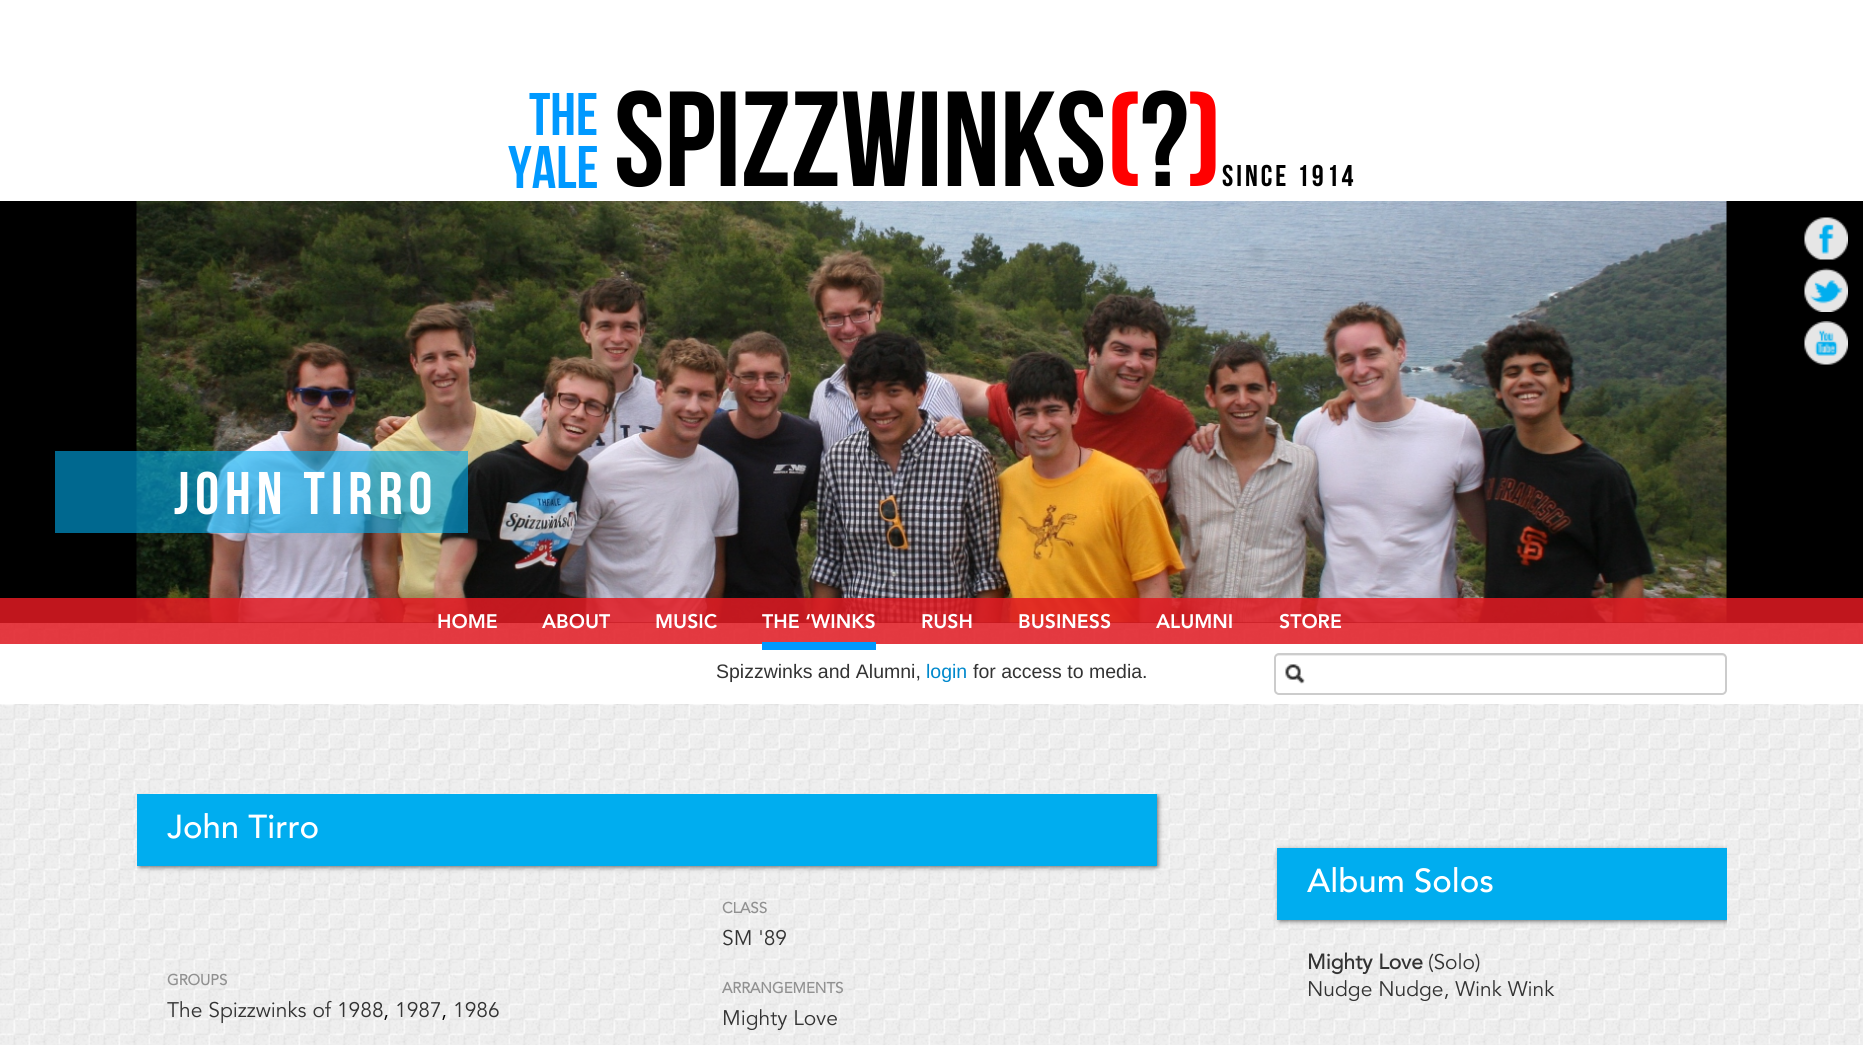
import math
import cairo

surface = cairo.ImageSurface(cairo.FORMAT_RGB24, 1863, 1045)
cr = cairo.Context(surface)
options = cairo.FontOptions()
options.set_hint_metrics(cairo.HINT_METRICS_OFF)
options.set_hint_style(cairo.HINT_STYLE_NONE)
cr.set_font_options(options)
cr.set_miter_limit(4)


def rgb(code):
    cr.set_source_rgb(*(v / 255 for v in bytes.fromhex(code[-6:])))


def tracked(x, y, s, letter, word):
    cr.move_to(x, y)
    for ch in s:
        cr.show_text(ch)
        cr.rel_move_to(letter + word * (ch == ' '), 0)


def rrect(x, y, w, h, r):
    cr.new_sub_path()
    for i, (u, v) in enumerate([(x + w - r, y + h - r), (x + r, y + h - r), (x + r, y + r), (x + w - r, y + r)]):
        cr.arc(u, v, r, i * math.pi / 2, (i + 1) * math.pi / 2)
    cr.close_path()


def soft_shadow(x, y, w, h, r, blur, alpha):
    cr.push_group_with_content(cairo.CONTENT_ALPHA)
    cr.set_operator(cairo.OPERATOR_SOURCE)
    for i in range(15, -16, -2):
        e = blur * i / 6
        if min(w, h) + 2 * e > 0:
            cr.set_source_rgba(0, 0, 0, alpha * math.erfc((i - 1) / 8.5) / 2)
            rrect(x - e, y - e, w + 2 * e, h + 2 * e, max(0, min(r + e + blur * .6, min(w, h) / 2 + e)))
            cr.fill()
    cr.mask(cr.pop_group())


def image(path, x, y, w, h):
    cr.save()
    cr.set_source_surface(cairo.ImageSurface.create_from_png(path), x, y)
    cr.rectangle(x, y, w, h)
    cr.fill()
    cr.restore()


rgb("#ffffff")
cr.paint()
image("img/1.png", 0, 623, 1863, 422)
rgb("#000000")
cr.rectangle(0, 201, 1863, 422)
cr.fill()
image("img/2.png", 1804, 217, 44, 43)
image("img/3.png", 1804, 268, 44, 44)
image("img/4.png", 1804, 321, 44, 44)
image("img/5.png", 136, 201, 1591, 422)
cr.set_source_rgba(0, 0.678, 0.933, 0.6)
cr.rectangle(55, 451, 413, 82)
cr.fill()
cr.set_source_rgba(0.886, 0.102, 0.137, 0.85)
cr.rectangle(0, 598, 1863, 46)
cr.fill()
rgb("#ffffff")
cr.rectangle(0, 644, 1863, 60)
cr.fill()
rgb("#0099ff")
cr.rectangle(762, 642, 114, 8)
cr.fill()
rgb("#ececec")
cr.new_path()
cr.move_to(1278, 656)
cr.line_to(1722, 656)
cr.curve_to(1724, 656, 1725, 657, 1725, 658)
cr.curve_to(1725, 656, 1724, 654, 1722, 654)
cr.line_to(1277, 654)
cr.line_to(1275, 656)
cr.line_to(1275, 658)
cr.curve_to(1275, 657, 1276, 656, 1278, 656)
cr.close_path()
cr.fill()
rrect(1275, 654, 451, 40, 4)
rgb("#cccccc")
cr.stroke()
image("img/6.png", 1285, 664, 20, 20)
cr.save()
cr.rectangle(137, 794, 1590, 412)
cr.clip()
rgb("#343434")
soft_shadow(140, 797, 1017, 69, 0, 3, 1)
cr.restore()
rgb("#00adef")
cr.rectangle(137, 794, 1020, 72)
cr.fill()
cr.save()
cr.rectangle(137, 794, 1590, 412)
cr.clip()
rgb("#343434")
soft_shadow(1280, 851, 447, 69, 0, 3, 1)
cr.restore()
cr.rectangle(1277, 848, 450, 72)
cr.fill()
cr.select_font_face("Bebas Neue")
cr.set_font_size(60)
rgb("#0099ff")
cr.move_to(529, 135)
cr.show_text("THE")
cr.move_to(508, 188)
cr.show_text("YALE")
cr.set_font_size(135)
rgb("#000000")
cr.move_to(614, 186)
cr.show_text("SPIZZWINKS")
rgb("#ff0000")
cr.move_to(1106, 186)
cr.show_text("(")
rgb("#000000")
cr.move_to(1140, 186)
cr.show_text("?")
rgb("#ff0000")
cr.move_to(1188, 186)
cr.show_text(")")
cr.set_font_size(30)
rgb("#000000")
tracked(1222, 186, "SINCE 1914", 3, 0)
cr.set_font_size(60)
rgb("#ffffff")
tracked(174, 514, "JOHN TIRRO", 6, 0)
cr.select_font_face("Avenir Black")
cr.set_font_size(19.5)
for x, y, s in [
    (437, 628, "HOME"),
    (542, 628, "ABOUT"),
    (655, 628, "MUSIC"),
    (762, 628, "THE ‘WINKS"),
    (921, 628, "RUSH"),
    (1018, 628, "BUSINESS"),
    (1156, 628, "ALUMNI"),
    (1279, 628, "STORE"),
]:
    cr.move_to(x, y)
    cr.show_text(s)
cr.select_font_face("Liberation Sans")
rgb("#333333")
cr.move_to(716, 678)
cr.show_text("Spizzwinks and Alumni,")
rgb("#0088cc")
cr.move_to(926, 678)
cr.show_text("login")
rgb("#333333")
cr.move_to(973, 678)
cr.show_text("for access to media.")
cr.select_font_face("Avenir Medium")
cr.set_font_size(33)
rgb("#ffffff")
cr.move_to(167, 838)
cr.show_text("John Tirro")
cr.select_font_face("Avenir", cairo.FONT_SLANT_NORMAL, cairo.FONT_WEIGHT_BOLD)
cr.set_font_size(15)
rgb("#919191")
cr.move_to(167, 985)
cr.show_text("GROUPS")
cr.select_font_face("Avenir")
cr.set_font_size(21)
rgb("#333333")
cr.move_to(167, 1017)
cr.show_text("The Spizzwinks of 1988")
rgb("#000000")
cr.move_to(383, 1017)
cr.show_text(",")
rgb("#333333")
cr.move_to(395, 1017)
cr.show_text("1987")
rgb("#000000")
cr.move_to(441, 1017)
cr.show_text(",")
rgb("#333333")
cr.move_to(453, 1017)
cr.show_text("1986")
cr.select_font_face("Avenir", cairo.FONT_SLANT_NORMAL, cairo.FONT_WEIGHT_BOLD)
cr.set_font_size(15)
rgb("#919191")
cr.move_to(722, 913)
cr.show_text("CLASS")
cr.select_font_face("Avenir")
cr.set_font_size(21)
rgb("#333333")
cr.move_to(722, 945)
cr.show_text("SM '89")
cr.select_font_face("Avenir", cairo.FONT_SLANT_NORMAL, cairo.FONT_WEIGHT_BOLD)
cr.set_font_size(15)
rgb("#919191")
cr.move_to(722, 993)
cr.show_text("ARRANGEMENTS")
cr.select_font_face("Avenir")
cr.set_font_size(21)
rgb("#333333")
cr.move_to(722, 1025)
cr.show_text("Mighty Love")
cr.select_font_face("Avenir Medium")
cr.set_font_size(33)
rgb("#ffffff")
cr.move_to(1307, 892)
cr.show_text("Album Solos")
cr.select_font_face("Avenir", cairo.FONT_SLANT_NORMAL, cairo.FONT_WEIGHT_BOLD)
cr.set_font_size(21)
rgb("#333333")
cr.move_to(1307, 969)
cr.show_text("Mighty Love")
cr.select_font_face("Avenir")
cr.move_to(1428, 969)
cr.show_text("(Solo)")
cr.move_to(1307, 996)
cr.show_text("Nudge Nudge, Wink Wink")
surface.write_to_png("page.png")
